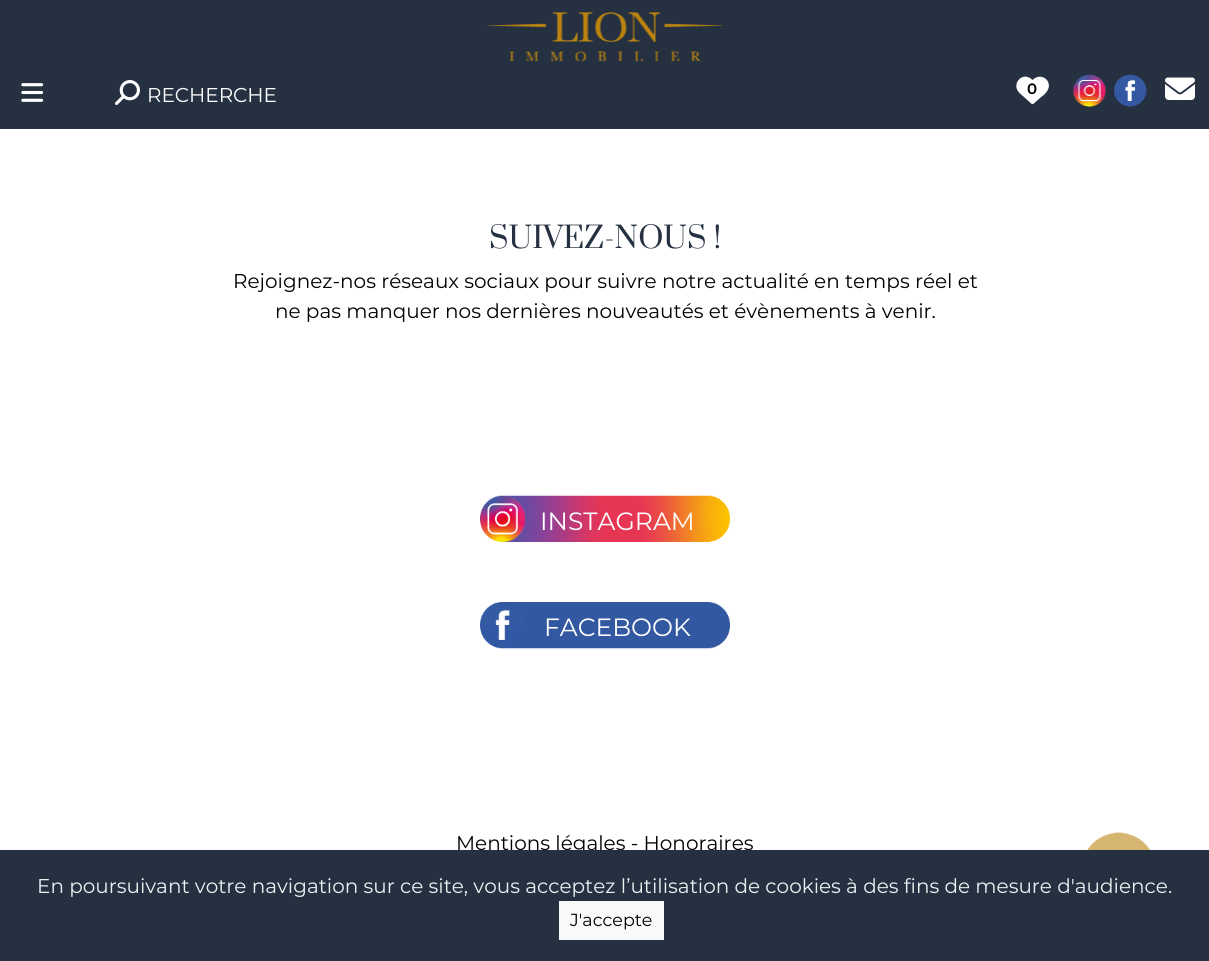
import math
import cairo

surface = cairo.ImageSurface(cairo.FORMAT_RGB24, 1209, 961)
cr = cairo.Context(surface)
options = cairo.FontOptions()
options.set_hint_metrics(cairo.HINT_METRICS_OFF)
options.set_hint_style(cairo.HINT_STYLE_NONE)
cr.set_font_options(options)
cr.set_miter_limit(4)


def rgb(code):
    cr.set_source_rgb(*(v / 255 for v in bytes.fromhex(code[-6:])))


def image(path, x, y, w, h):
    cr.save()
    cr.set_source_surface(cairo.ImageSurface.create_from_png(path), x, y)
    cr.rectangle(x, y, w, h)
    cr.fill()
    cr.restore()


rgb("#ffffff")
cr.paint()
rgb("#253141")
cr.rectangle(0, 0, 1209, 129)
cr.fill()
image("img/1.png", 487, 12, 236, 49)
image("img/2.png", 21, 83, 23, 19)
image("img/3.png", 115, 80, 25, 25)
rgb("#ffffff")
cr.new_path()
cr.move_to(1019.5, 93)
cr.line_to(1029, 101.5)
cr.curve_to(1032.5, 105, 1032.5, 105, 1036, 101.5)
cr.line_to(1040, 98)
cr.curve_to(1042.5, 96, 1046, 93.5, 1047.5, 90.5)
cr.curve_to(1053, 81, 1041, 71.5, 1032.5, 80)
cr.curve_to(1022.5, 70, 1010.5, 84.5, 1019.5, 93)
cr.close_path()
cr.fill()
image("img/4.png", 1073, 74, 33, 33)
image("img/5.png", 1114, 74, 33, 33)
image("img/6.png", 1165, 77, 30, 23)
image("img/7.png", 480, 495, 250, 47)
image("img/8.png", 480, 602, 250, 47)
image("img/9.png", 1087, 832, 64, 18)
cr.select_font_face("Montserrat")
cr.set_font_size(20)
cr.move_to(147, 102)
cr.show_text("RECHERCHE")
cr.select_font_face("Montserrat SemiBold")
cr.set_font_size(15)
rgb("#000000")
cr.move_to(1027, 94)
cr.show_text("0")
cr.select_font_face("Prata")
cr.set_font_size(29.25)
rgb("#253141")
cr.move_to(489, 248)
cr.show_text("SUIVEZ-NOUS !")
cr.select_font_face("Montserrat")
cr.set_font_size(20)
rgb("#000000")
cr.move_to(233, 288)
cr.show_text("Rejoignez-nos réseaux sociaux pour suivre notre actualité en temps réel et")
cr.move_to(275, 318)
cr.show_text("ne pas manquer nos dernières nouveautés et évènements à venir.")
cr.set_font_size(25)
rgb("#ffffff")
cr.move_to(540, 530)
cr.show_text("INSTAGRAM")
cr.move_to(544, 636)
cr.show_text("FACEBOOK")
cr.set_font_size(20)
rgb("#000000")
cr.move_to(456, 850)
cr.show_text("Mentions légales - Honoraires")
rgb("#253141")
cr.rectangle(0, 850, 1209, 111)
cr.fill()
rgb("#ecf0f1")
cr.move_to(37, 893)
cr.show_text("En poursuivant votre navigation sur ce site, vous acceptez l’utilisation de cookies à des fins de mesure d'audience.")
rgb("#f8f9fa")
cr.rectangle(559, 901, 105, 39)
cr.fill()
cr.set_font_size(17.5)
rgb("#000000")
cr.move_to(570, 926)
cr.show_text("J'accepte")
surface.write_to_png("page.png")
